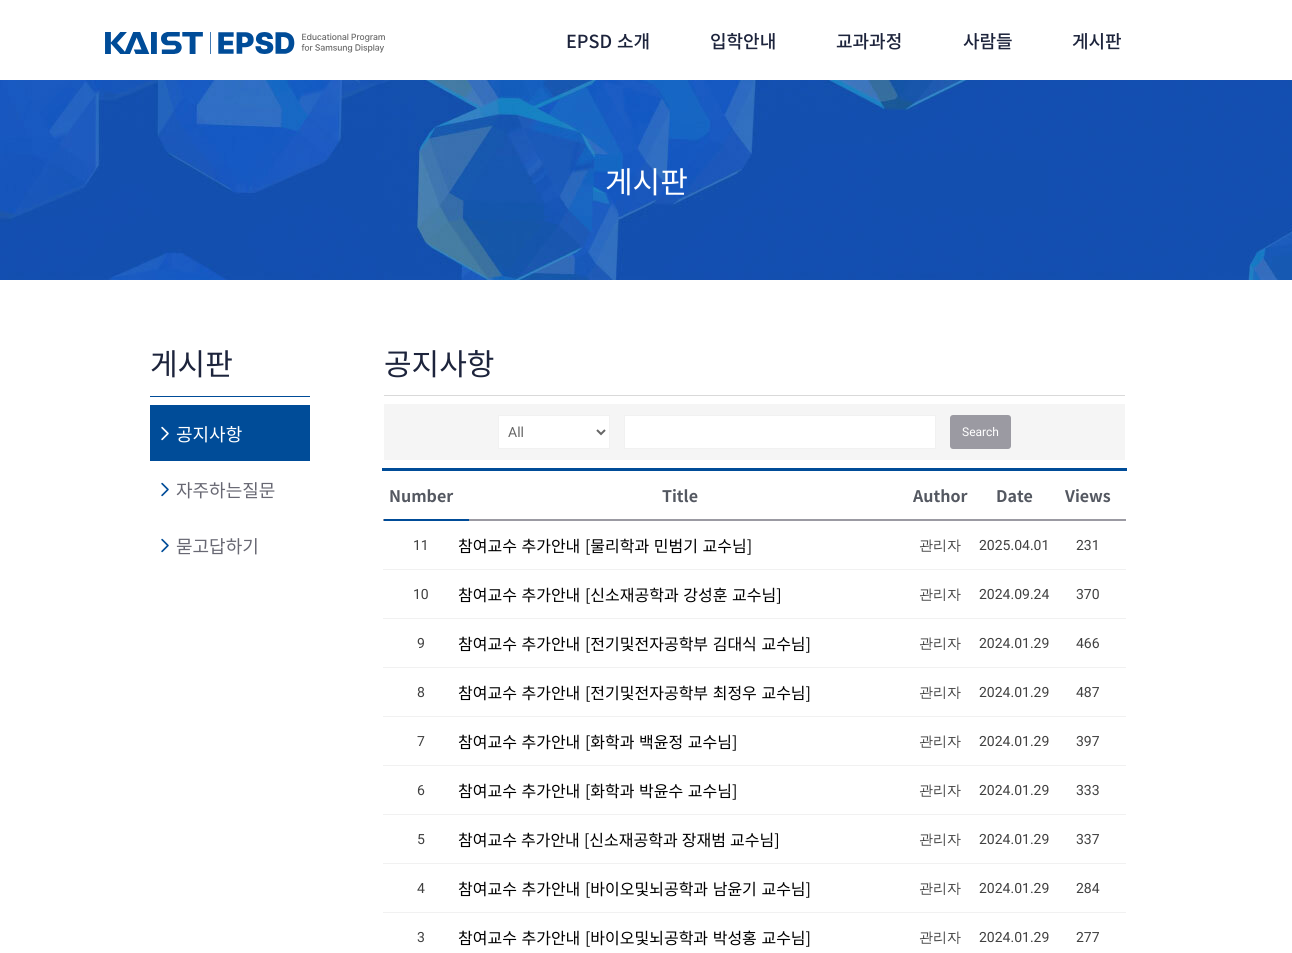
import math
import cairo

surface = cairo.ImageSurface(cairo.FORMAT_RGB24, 1292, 953)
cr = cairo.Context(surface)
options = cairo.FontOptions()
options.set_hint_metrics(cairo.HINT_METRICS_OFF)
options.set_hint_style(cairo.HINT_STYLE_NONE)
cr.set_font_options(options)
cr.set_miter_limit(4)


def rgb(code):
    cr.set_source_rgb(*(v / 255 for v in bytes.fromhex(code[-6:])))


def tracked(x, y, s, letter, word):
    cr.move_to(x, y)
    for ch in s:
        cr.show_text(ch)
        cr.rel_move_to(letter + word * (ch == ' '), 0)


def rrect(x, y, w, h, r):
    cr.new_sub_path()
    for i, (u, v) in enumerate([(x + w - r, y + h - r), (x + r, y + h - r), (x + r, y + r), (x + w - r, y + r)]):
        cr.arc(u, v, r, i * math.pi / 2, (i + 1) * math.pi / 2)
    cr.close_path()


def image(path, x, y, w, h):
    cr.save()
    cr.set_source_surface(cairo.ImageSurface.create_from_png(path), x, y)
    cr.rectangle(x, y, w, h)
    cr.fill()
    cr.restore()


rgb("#ffffff")
cr.paint()
image("img/1.png", 105, 32, 280, 22)
image("img/2.png", 0, 80, 1292, 200)
rgb("#004c98")
cr.rectangle(150, 396, 160, 1)
cr.fill()
cr.rectangle(150, 405, 160, 56)
cr.fill()
image("img/3.png", 161, 426, 8, 15)
image("img/4.png", 161, 482, 8, 15)
image("img/4.png", 161, 538, 8, 15)
rgb("#d9d9d9")
cr.rectangle(384, 395, 741, 1)
cr.fill()
rgb("#f5f5f5")
cr.rectangle(384, 404, 741, 56)
cr.fill()
rgb("#ffffff")
cr.rectangle(498.5, 415.5, 111, 33)
cr.fill_preserve()
rgb("#f1f1f1")
cr.set_line_width(1)
cr.stroke()
cr.new_path()
cr.move_to(597, 430)
cr.line_to(601, 434)
cr.line_to(605, 430)
rgb("#666666")
cr.set_line_width(2)
cr.stroke()
rgb("#ffffff")
cr.rectangle(624.5, 415.5, 311, 33)
cr.fill_preserve()
rgb("#f1f1f1")
cr.set_line_width(1)
cr.stroke()
rgb("#9b9aa2")
rrect(950, 415, 61, 34, 3)
cr.fill()
for x, y, w, h, color in [
    (382, 468, 745, 3, "#004c98"),
    (383, 519, 1, 2, "#9b9aa2"),
    (469, 519, 657, 2, "#9b9aa2"),
    (384, 519, 85, 2, "#004c98"),
    (383, 569, 743, 1, "#f1f1f1"),
    (383, 618, 743, 1, "#f1f1f1"),
    (383, 667, 743, 1, "#f1f1f1"),
    (383, 716, 743, 1, "#f1f1f1"),
    (383, 765, 743, 1, "#f1f1f1"),
    (383, 814, 743, 1, "#f1f1f1"),
    (383, 863, 743, 1, "#f1f1f1"),
    (383, 912, 743, 1, "#f1f1f1"),
]:
    rgb(color)
    cr.rectangle(x, y, w, h)
    cr.fill()
cr.select_font_face("Noto Sans KR Medium")
cr.set_font_size(18)
rgb("#1d243c")
tracked(566, 48, "EPSD 소개", 0, 1)
for x, y, s in [
    (710, 48, "입학안내"),
    (836, 48, "교과과정"),
    (963, 48, "사람들"),
    (1072, 48, "게시판"),
]:
    cr.move_to(x, y)
    cr.show_text(s)
cr.select_font_face("Noto Sans KR")
cr.set_font_size(30)
rgb("#ffffff")
cr.move_to(605, 193)
cr.show_text("게시판")
rgb("#1d243c")
cr.move_to(150, 375)
cr.show_text("게시판")
cr.set_font_size(18)
rgb("#ffffff")
cr.move_to(176, 441)
cr.show_text("공지사항")
rgb("#686873")
cr.move_to(176, 497)
cr.show_text("자주하는질문")
cr.move_to(176, 553)
cr.show_text("묻고답하기")
cr.set_font_size(30)
rgb("#1d243c")
cr.move_to(384, 375)
cr.show_text("공지사항")
cr.select_font_face("Roboto")
cr.set_font_size(14)
rgb("#666666")
cr.move_to(508, 437)
cr.show_text("All")
cr.set_font_size(12)
rgb("#ffffff")
cr.move_to(962, 436)
cr.show_text("Search")
cr.select_font_face("Noto Sans KR", cairo.FONT_SLANT_NORMAL, cairo.FONT_WEIGHT_BOLD)
cr.set_font_size(16)
rgb("#545861")
for x, y, s in [
    (389, 502, "Number"),
    (662, 502, "Title"),
    (913, 502, "Author"),
    (996, 502, "Date"),
    (1065, 502, "Views"),
]:
    cr.move_to(x, y)
    cr.show_text(s)
cr.select_font_face("Roboto")
cr.set_font_size(14)
rgb("#404040")
cr.move_to(413, 550)
cr.show_text("11")
cr.select_font_face("Noto Sans KR")
cr.set_font_size(16)
rgb("#000000")
tracked(458, 552, "참여교수 추가안내 [물리학과 민범기 교수님]", 0, 1)
cr.select_font_face("WenQuanYi Zen Hei Medium")
cr.set_font_size(14)
rgb("#404040")
cr.move_to(919, 550)
cr.show_text("관리자")
cr.select_font_face("Roboto")
for x, y, s in [
    (979, 550, "2025.04.01"),
    (1076, 550, "231"),
    (413, 599, "10"),
]:
    cr.move_to(x, y)
    cr.show_text(s)
cr.select_font_face("Noto Sans KR")
cr.set_font_size(16)
rgb("#000000")
tracked(458, 601, "참여교수 추가안내 [신소재공학과 강성훈 교수님]", 0, 1)
cr.select_font_face("WenQuanYi Zen Hei Medium")
cr.set_font_size(14)
rgb("#404040")
cr.move_to(919, 599)
cr.show_text("관리자")
cr.select_font_face("Roboto")
for x, y, s in [
    (979, 599, "2024.09.24"),
    (1076, 599, "370"),
    (417, 648, "9"),
]:
    cr.move_to(x, y)
    cr.show_text(s)
cr.select_font_face("Noto Sans KR")
cr.set_font_size(16)
rgb("#000000")
tracked(458, 650, "참여교수 추가안내 [전기및전자공학부 김대식 교수님]", 0, 1)
cr.select_font_face("WenQuanYi Zen Hei Medium")
cr.set_font_size(14)
rgb("#404040")
cr.move_to(919, 648)
cr.show_text("관리자")
cr.select_font_face("Roboto")
for x, y, s in [
    (979, 648, "2024.01.29"),
    (1076, 648, "466"),
    (417, 697, "8"),
]:
    cr.move_to(x, y)
    cr.show_text(s)
cr.select_font_face("Noto Sans KR")
cr.set_font_size(16)
rgb("#000000")
tracked(458, 699, "참여교수 추가안내 [전기및전자공학부 최정우 교수님]", 0, 1)
cr.select_font_face("WenQuanYi Zen Hei Medium")
cr.set_font_size(14)
rgb("#404040")
cr.move_to(919, 697)
cr.show_text("관리자")
cr.select_font_face("Roboto")
for x, y, s in [
    (979, 697, "2024.01.29"),
    (1076, 697, "487"),
    (417, 746, "7"),
]:
    cr.move_to(x, y)
    cr.show_text(s)
cr.select_font_face("Noto Sans KR")
cr.set_font_size(16)
rgb("#000000")
tracked(458, 748, "참여교수 추가안내 [화학과 백윤정 교수님]", 0, 1)
cr.select_font_face("WenQuanYi Zen Hei Medium")
cr.set_font_size(14)
rgb("#404040")
cr.move_to(919, 746)
cr.show_text("관리자")
cr.select_font_face("Roboto")
for x, y, s in [
    (979, 746, "2024.01.29"),
    (1076, 746, "397"),
    (417, 795, "6"),
]:
    cr.move_to(x, y)
    cr.show_text(s)
cr.select_font_face("Noto Sans KR")
cr.set_font_size(16)
rgb("#000000")
tracked(458, 797, "참여교수 추가안내 [화학과 박윤수 교수님]", 0, 1)
cr.select_font_face("WenQuanYi Zen Hei Medium")
cr.set_font_size(14)
rgb("#404040")
cr.move_to(919, 795)
cr.show_text("관리자")
cr.select_font_face("Roboto")
for x, y, s in [
    (979, 795, "2024.01.29"),
    (1076, 795, "333"),
    (417, 844, "5"),
]:
    cr.move_to(x, y)
    cr.show_text(s)
cr.select_font_face("Noto Sans KR")
cr.set_font_size(16)
rgb("#000000")
tracked(458, 846, "참여교수 추가안내 [신소재공학과 장재범 교수님]", 0, 0.5)
cr.select_font_face("WenQuanYi Zen Hei Medium")
cr.set_font_size(14)
rgb("#404040")
cr.move_to(919, 844)
cr.show_text("관리자")
cr.select_font_face("Roboto")
for x, y, s in [
    (979, 844, "2024.01.29"),
    (1076, 844, "337"),
    (417, 893, "4"),
]:
    cr.move_to(x, y)
    cr.show_text(s)
cr.select_font_face("Noto Sans KR")
cr.set_font_size(16)
rgb("#000000")
tracked(458, 895, "참여교수 추가안내 [바이오및뇌공학과 남윤기 교수님]", 0, 1)
cr.select_font_face("WenQuanYi Zen Hei Medium")
cr.set_font_size(14)
rgb("#404040")
cr.move_to(919, 893)
cr.show_text("관리자")
cr.select_font_face("Roboto")
for x, y, s in [
    (979, 893, "2024.01.29"),
    (1076, 893, "284"),
    (417, 942, "3"),
]:
    cr.move_to(x, y)
    cr.show_text(s)
cr.select_font_face("Noto Sans KR")
cr.set_font_size(16)
rgb("#000000")
tracked(458, 944, "참여교수 추가안내 [바이오및뇌공학과 박성홍 교수님]", 0, 1)
cr.select_font_face("WenQuanYi Zen Hei Medium")
cr.set_font_size(14)
rgb("#404040")
cr.move_to(919, 942)
cr.show_text("관리자")
cr.select_font_face("Roboto")
cr.move_to(979, 942)
cr.show_text("2024.01.29")
cr.move_to(1076, 942)
cr.show_text("277")
surface.write_to_png("page.png")
